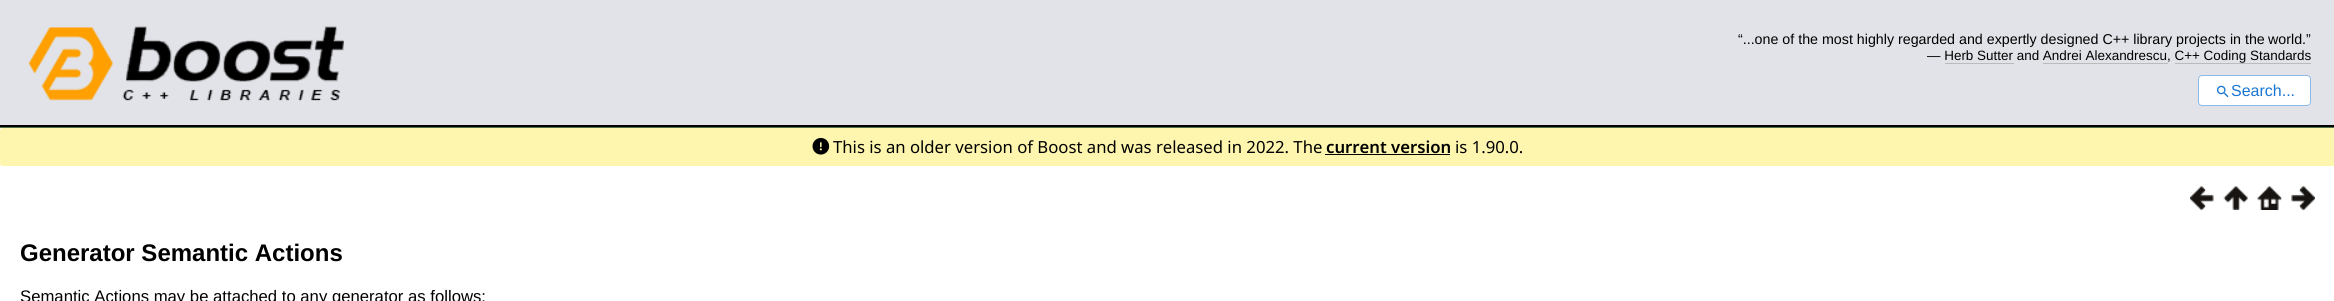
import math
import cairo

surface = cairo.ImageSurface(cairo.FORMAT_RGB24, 2334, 301)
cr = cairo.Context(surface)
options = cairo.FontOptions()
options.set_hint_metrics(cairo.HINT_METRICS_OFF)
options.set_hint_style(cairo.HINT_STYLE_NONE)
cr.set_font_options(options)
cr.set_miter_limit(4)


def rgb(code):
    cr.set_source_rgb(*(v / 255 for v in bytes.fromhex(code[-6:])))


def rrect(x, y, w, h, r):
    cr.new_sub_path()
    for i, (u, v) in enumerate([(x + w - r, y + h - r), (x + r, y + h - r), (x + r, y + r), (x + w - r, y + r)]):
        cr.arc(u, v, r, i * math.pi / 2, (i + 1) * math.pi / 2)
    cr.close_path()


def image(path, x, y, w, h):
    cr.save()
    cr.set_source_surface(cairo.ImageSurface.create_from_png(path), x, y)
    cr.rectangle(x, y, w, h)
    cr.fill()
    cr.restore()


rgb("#ffffff")
cr.paint()
for x, y, w, h, color in [
    (0, 127, 2334, 1, "#4f744d"),
    (0, 0, 2334, 125, "#e1e3e8"),
    (0, 125, 2334, 2, "#000000"),
]:
    rgb(color)
    cr.rectangle(x, y, w, h)
    cr.fill()
image("img/1.png", 28, 26, 316, 75)
for x, y, w, h, color in [
    (1945, 63, 69, 1, "#bbbbbb"),
    (2043, 63, 125, 1, "#bbbbbb"),
    (2175, 63, 136, 1, "#bbbbbb"),
]:
    rgb(color)
    cr.rectangle(x, y, w, h)
    cr.fill()
rgb("#ffffff")
rrect(2198, 75, 113, 31, 4)
cr.fill()
rrect(2198.5, 75.5, 112, 30, 3.5)
cr.set_source_rgba(0.098, 0.463, 0.824, 0.5)
cr.set_line_width(1)
cr.stroke()
image("img/2.png", 2217, 85, 12, 13)
rgb("#fef5ae")
rrect(0, 128, 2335, 38, 2.5)
cr.fill()
image("img/3.png", 812, 137, 18, 18)
rgb("#000000")
cr.rectangle(1325, 154, 125, 1)
cr.fill()
image("img/4.png", 2190, 186, 24, 24)
image("img/5.png", 2223, 186, 25, 24)
image("img/6.png", 2257, 186, 25, 24)
image("img/7.png", 2291, 186, 24, 24)
cr.select_font_face("Liberation Sans")
cr.set_font_size(14.25)
cr.move_to(1738, 44)
cr.show_text("“...one of the most highly regarded and expertly designed C++ library projects in the")
cr.move_to(2268, 44)
cr.show_text("world.”")
cr.set_font_size(13.45)
cr.move_to(1927, 60)
cr.show_text("— Herb Sutter and Andrei Alexandrescu, C++ Coding Standards")
cr.set_font_size(16)
rgb("#1976d2")
cr.move_to(2231, 96)
cr.show_text("Search...")
cr.select_font_face("Noto Sans")
cr.set_font_size(16.7)
rgb("#000000")
cr.move_to(833, 153)
cr.show_text("This is an older version of Boost and was released in 2022. The")
cr.select_font_face("Noto Sans SemiBold")
cr.move_to(1326, 153)
cr.show_text("current version")
cr.select_font_face("Noto Sans")
cr.move_to(1455, 153)
cr.show_text("is 1.90.0.")
cr.select_font_face("Liberation Sans", cairo.FONT_SLANT_NORMAL, cairo.FONT_WEIGHT_BOLD)
cr.set_font_size(24)
cr.move_to(20, 261)
cr.show_text("Generator Semantic Actions")
cr.select_font_face("Liberation Sans")
cr.set_font_size(16.7)
cr.move_to(20, 302)
cr.show_text("Semantic Actions may be attached to any generator as follows:")
surface.write_to_png("page.png")
